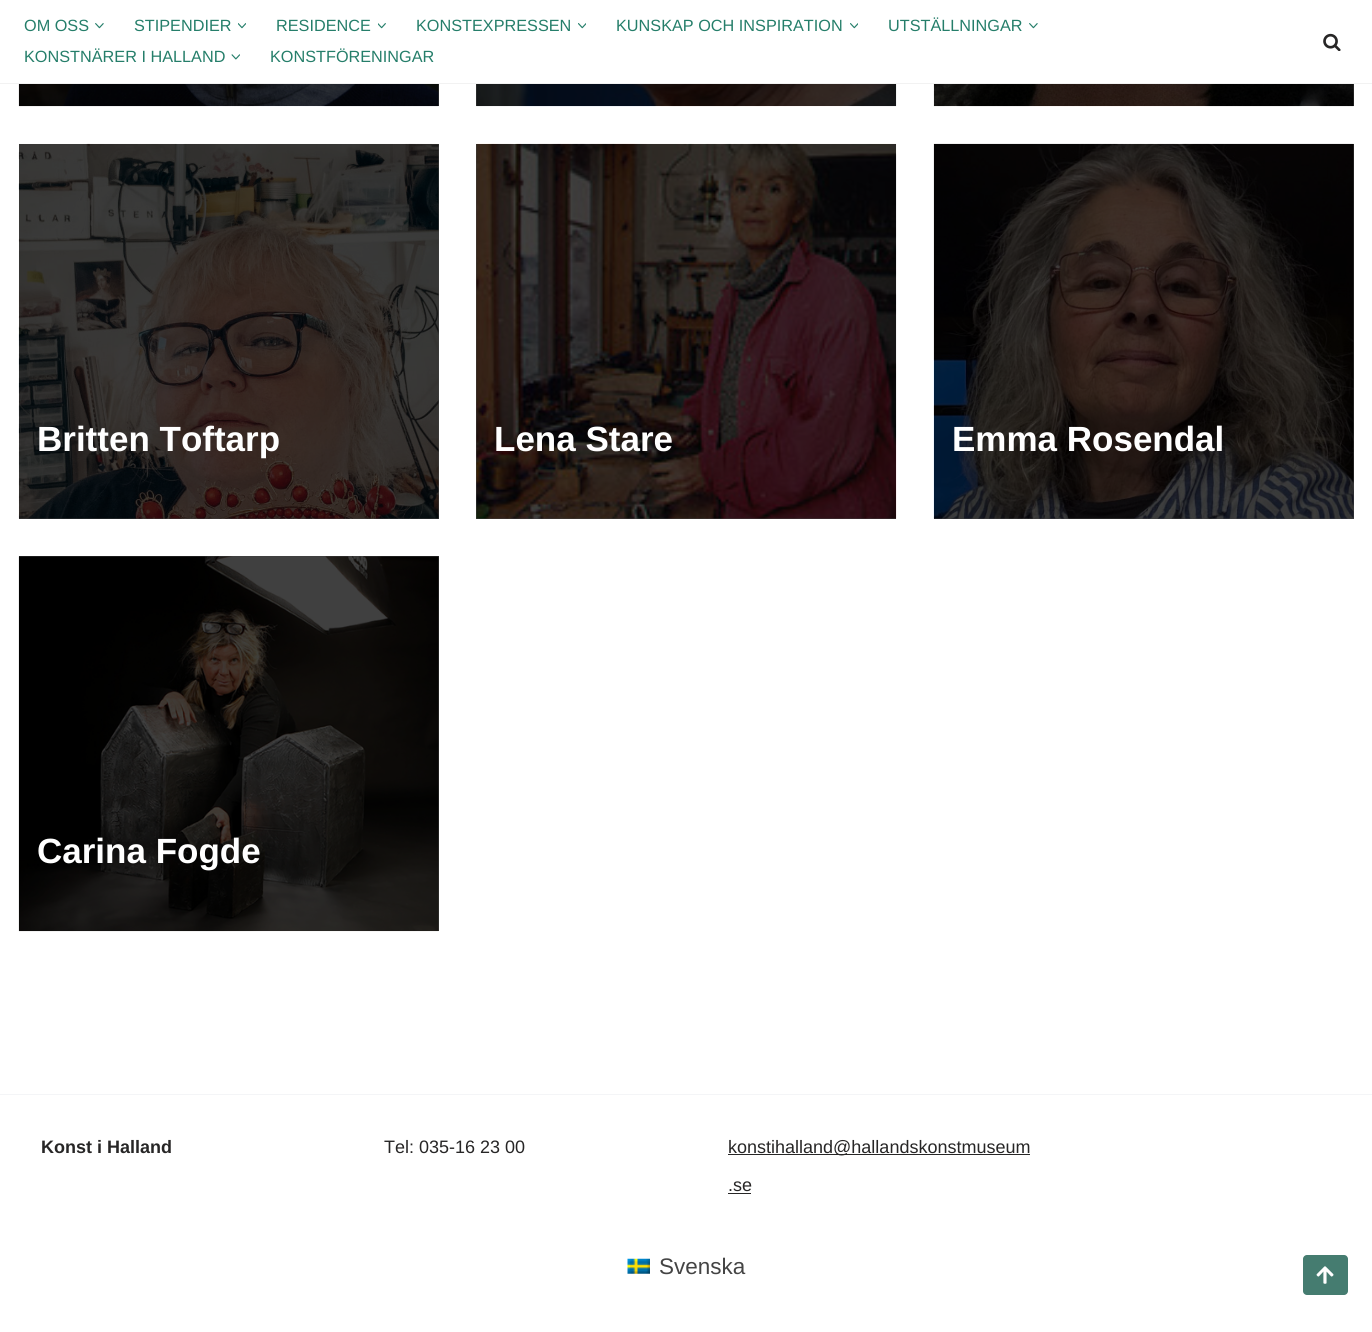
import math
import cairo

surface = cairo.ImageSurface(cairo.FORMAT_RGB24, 1372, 1332)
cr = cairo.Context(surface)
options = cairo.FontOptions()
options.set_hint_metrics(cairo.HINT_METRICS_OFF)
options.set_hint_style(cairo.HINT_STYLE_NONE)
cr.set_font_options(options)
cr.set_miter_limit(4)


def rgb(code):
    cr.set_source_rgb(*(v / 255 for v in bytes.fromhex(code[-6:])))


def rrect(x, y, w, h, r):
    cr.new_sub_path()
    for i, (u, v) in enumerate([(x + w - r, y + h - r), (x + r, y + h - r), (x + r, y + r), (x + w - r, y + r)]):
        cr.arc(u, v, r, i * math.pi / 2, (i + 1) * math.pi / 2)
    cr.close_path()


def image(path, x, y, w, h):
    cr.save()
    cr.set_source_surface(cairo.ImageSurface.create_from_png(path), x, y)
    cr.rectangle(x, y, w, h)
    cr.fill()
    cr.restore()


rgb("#ffffff")
cr.paint()
for x, y, w, h, color in [
    (19, 556, 420, 375, "#404040"),
    (934, 144, 420, 375, "#404040"),
    (476, 144, 420, 375, "#404040"),
    (19, 144, 420, 375, "#404040"),
    (1353, 84, 1, 22, "#404040"),
    (476, 84, 1, 22, "#404040"),
    (438, 84, 1, 22, "#404040"),
    (0, 83, 1372, 1, "#f2f2f2"),
]:
    rgb(color)
    cr.rectangle(x, y, w, h)
    cr.fill()
image("img/1.png", 95, 23, 9, 6)
image("img/2.png", 238, 23, 8, 6)
image("img/3.png", 378, 23, 8, 6)
image("img/4.png", 578, 23, 8, 6)
image("img/5.png", 850, 23, 8, 6)
image("img/6.png", 1029, 23, 9, 6)
image("img/7.png", 231, 54, 9, 6)
image("img/8.png", 1323, 33, 18, 18)
image("img/9.png", 18, 84, 421, 23)
image("img/10.png", 476, 84, 421, 23)
image("img/11.png", 933, 84, 421, 23)
image("img/12.png", 18, 143, 421, 376)
image("img/13.png", 476, 143, 421, 376)
image("img/14.png", 933, 143, 421, 376)
image("img/15.png", 18, 556, 421, 376)
for x, y, w, h, color in [
    (0, 1094, 1372, 1, "#f4f5f7"),
    (728, 1154, 302, 1, "#272626"),
    (728, 1193, 23, 1, "#272626"),
]:
    rgb(color)
    cr.rectangle(x, y, w, h)
    cr.fill()
rgb("#457c70")
rrect(1303, 1255, 45, 40, 4)
cr.fill()
image("img/16.png", 1316, 1266, 18, 18)
image("img/17.png", 627, 1258, 23, 16)
cr.select_font_face("Liberation Sans")
cr.set_font_size(16.25)
rgb("#257e6a")
for x, y, s in [
    (24, 31, "OM OSS"),
    (134, 31, "STIPENDIER"),
    (276, 31, "RESIDENCE"),
    (416, 31, "KONSTEXPRESSEN"),
    (616, 31, "KUNSKAP OCH INSPIRATION"),
    (888, 31, "UTSTÄLLNINGAR"),
    (24, 62, "KONSTNÄRER I HALLAND"),
    (270, 62, "KONSTFÖRENINGAR"),
]:
    cr.move_to(x, y)
    cr.show_text(s)
cr.select_font_face("Liberation Sans", cairo.FONT_SLANT_NORMAL, cairo.FONT_WEIGHT_BOLD)
cr.set_font_size(35)
rgb("#ffffff")
for x, y, s in [
    (37, 451, "Britten Toftarp"),
    (494, 451, "Lena Stare"),
    (952, 451, "Emma Rosendal"),
    (37, 863, "Carina Fogde"),
]:
    cr.move_to(x, y)
    cr.show_text(s)
cr.set_font_size(18)
rgb("#272626")
cr.move_to(41, 1153)
cr.show_text("Konst i Halland")
cr.select_font_face("Liberation Sans")
for x, y, s in [
    (384, 1153, "Tel: 035-16 23 00"),
    (728, 1153, "konstihalland@hallandskonstmuseum"),
    (728, 1191, ".se"),
]:
    cr.move_to(x, y)
    cr.show_text(s)
cr.set_font_size(22.5)
rgb("#444444")
cr.move_to(659, 1274)
cr.show_text("Svenska")
surface.write_to_png("page.png")
